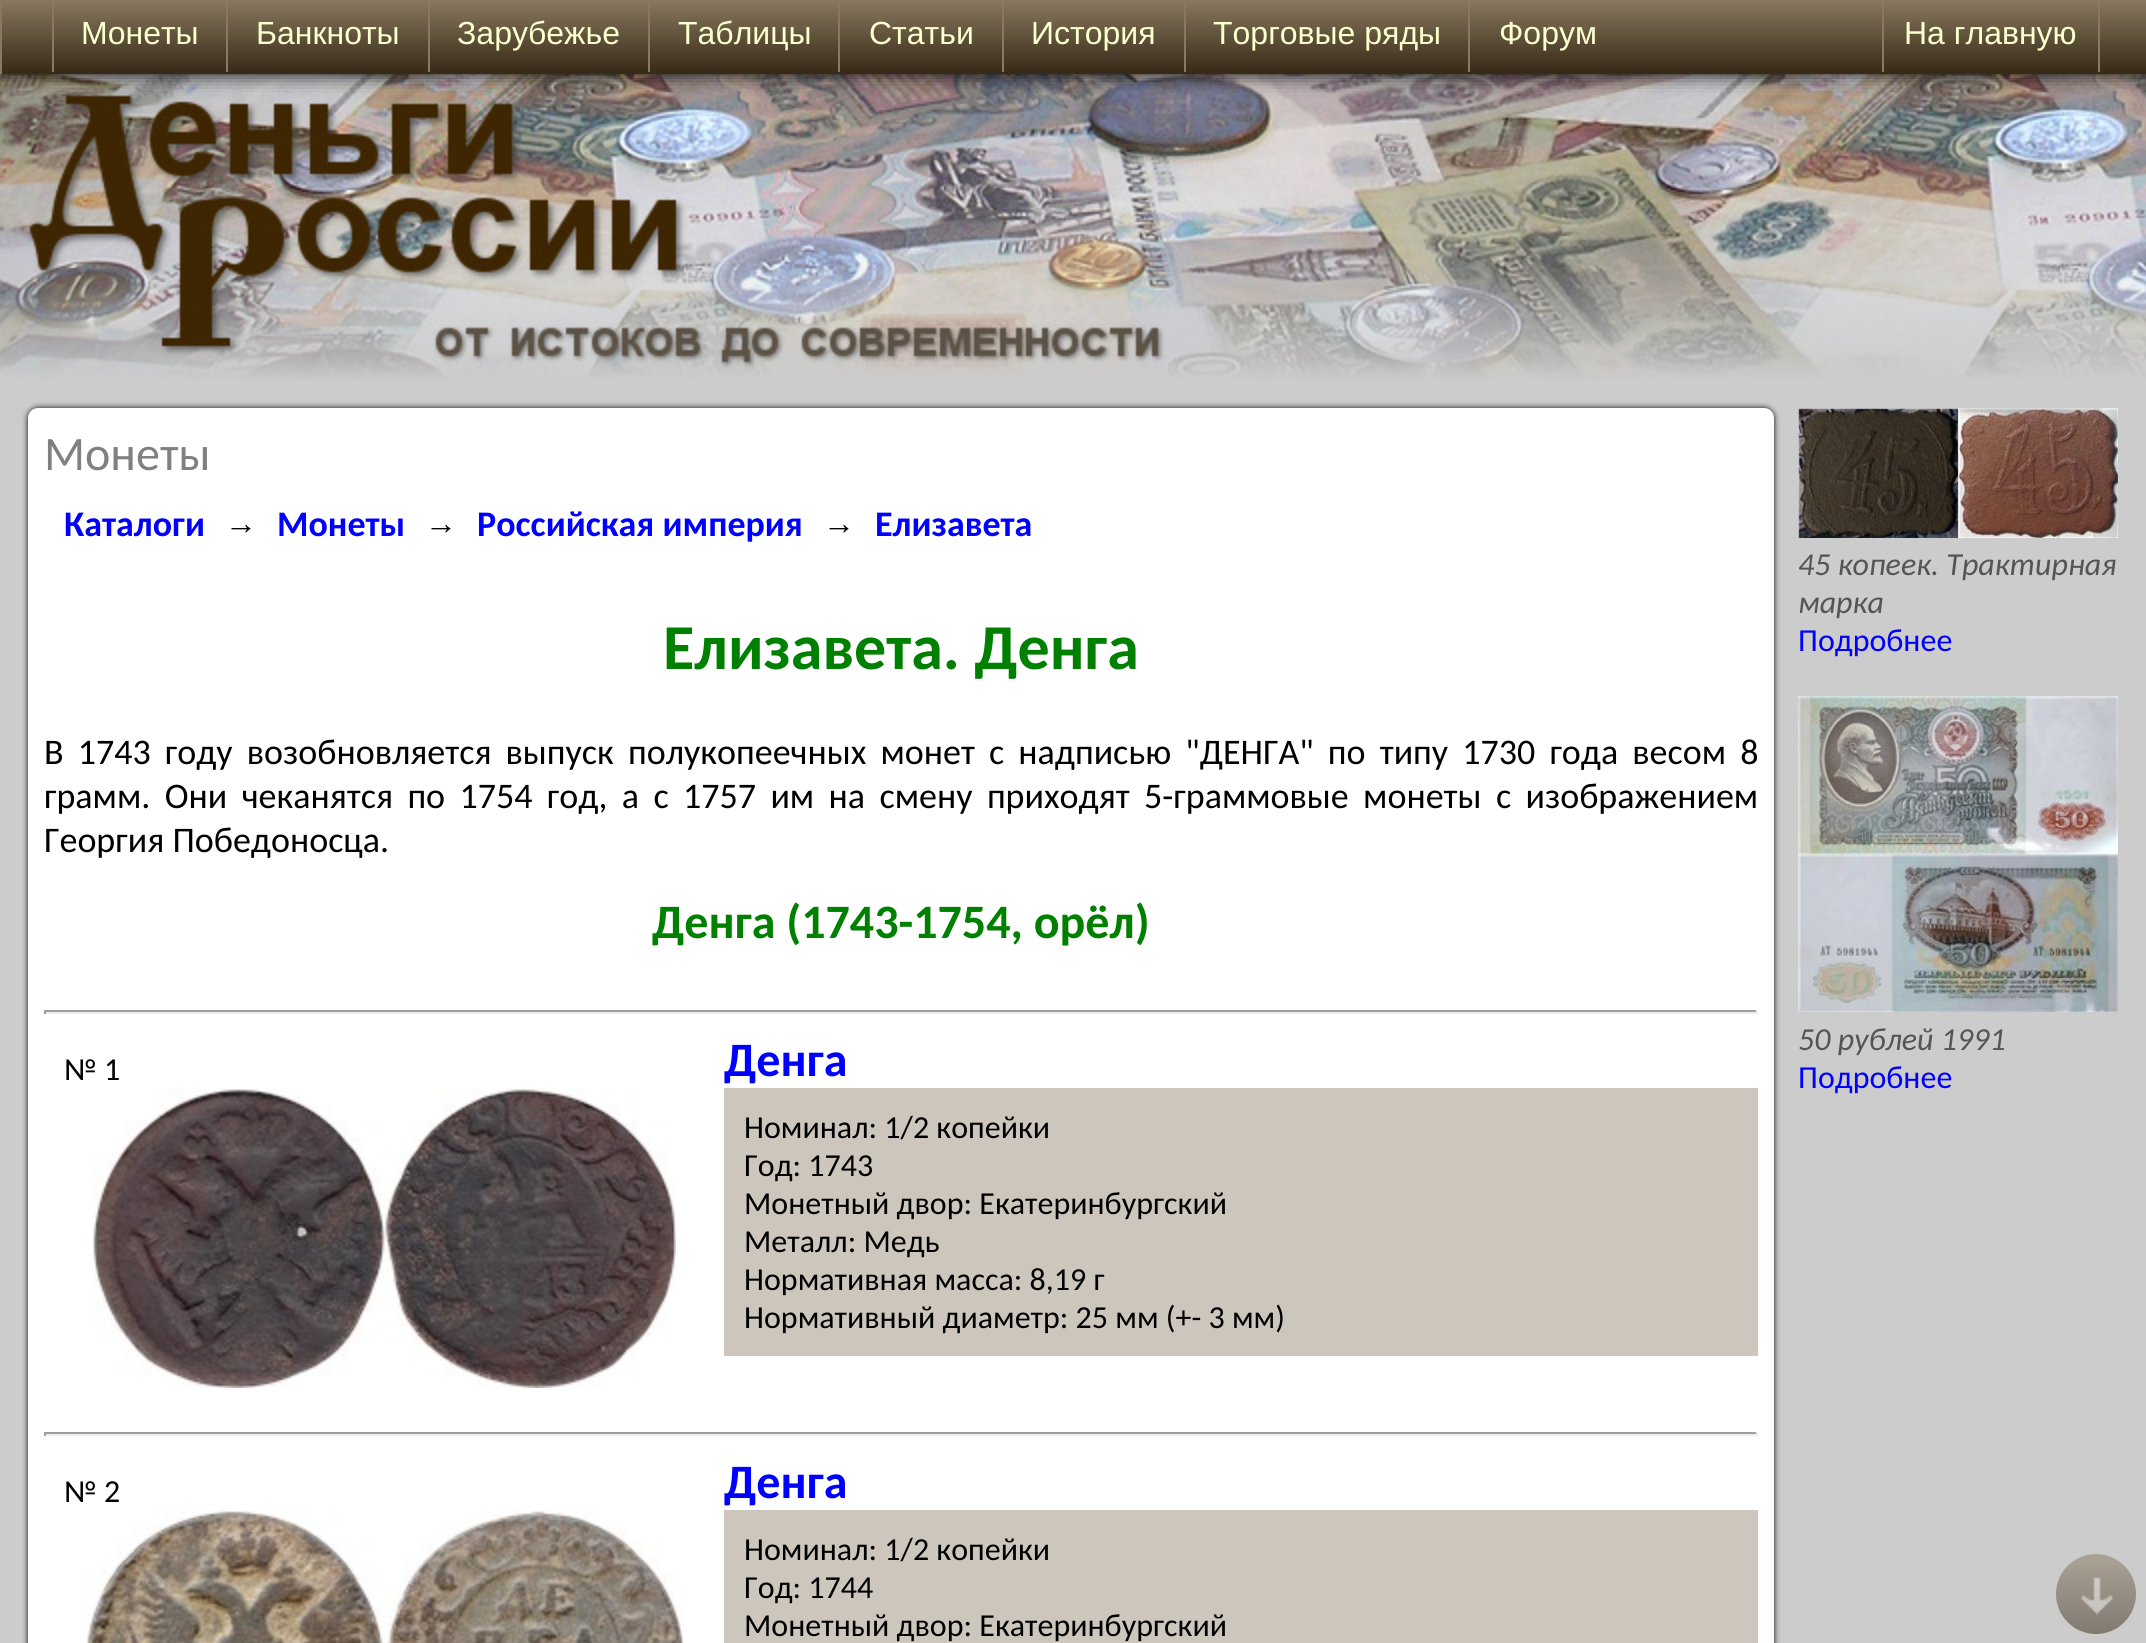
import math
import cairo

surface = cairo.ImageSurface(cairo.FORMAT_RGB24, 2146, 1643)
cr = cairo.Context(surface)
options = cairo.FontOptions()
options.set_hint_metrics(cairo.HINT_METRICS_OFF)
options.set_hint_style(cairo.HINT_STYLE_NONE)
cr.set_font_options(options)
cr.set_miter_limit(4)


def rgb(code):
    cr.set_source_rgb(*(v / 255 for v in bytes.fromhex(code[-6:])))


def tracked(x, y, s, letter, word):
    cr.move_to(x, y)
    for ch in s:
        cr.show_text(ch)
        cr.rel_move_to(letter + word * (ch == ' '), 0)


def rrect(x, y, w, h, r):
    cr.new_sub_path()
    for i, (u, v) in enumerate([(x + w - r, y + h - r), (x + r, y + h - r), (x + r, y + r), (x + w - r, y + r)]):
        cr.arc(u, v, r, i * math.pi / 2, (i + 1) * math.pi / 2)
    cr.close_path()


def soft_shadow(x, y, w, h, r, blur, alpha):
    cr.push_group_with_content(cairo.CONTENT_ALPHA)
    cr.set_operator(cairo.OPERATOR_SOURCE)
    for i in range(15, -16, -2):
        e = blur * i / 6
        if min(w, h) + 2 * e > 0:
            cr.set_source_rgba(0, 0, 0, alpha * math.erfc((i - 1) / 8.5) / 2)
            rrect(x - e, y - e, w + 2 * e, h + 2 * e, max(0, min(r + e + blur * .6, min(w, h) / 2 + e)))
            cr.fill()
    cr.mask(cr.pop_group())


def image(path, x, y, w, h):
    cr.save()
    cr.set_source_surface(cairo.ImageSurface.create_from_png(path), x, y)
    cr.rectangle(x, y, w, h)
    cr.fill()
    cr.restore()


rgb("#cccccc")
cr.paint()
image("img/1.png", 0, 74, 1200, 306)
image("img/2.png", 1200, 74, 946, 306)
rgb("#000000")
soft_shadow(0, 0, 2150, 74, 0, 10, 1)
gradient = cairo.LinearGradient(1075, 74, 1075, 0)
gradient.add_color_stop_rgba(0, 0.208, 0.157, 0.086, 1)
gradient.add_color_stop_rgba(1, 0.541, 0.475, 0.376, 1)
cr.set_source(gradient)
cr.rectangle(2, 0, 2144, 74)
cr.fill()
for x, y, w, h, color in [
    (0, 0, 2, 74, "#8a7960"),
    (52, 0, 2, 72, "#8a7960"),
    (226, 0, 2, 72, "#8a7960"),
    (428, 0, 2, 72, "#8a7960"),
    (648, 0, 2, 72, "#8a7960"),
    (838, 0, 2, 72, "#8a7960"),
    (1002, 0, 2, 72, "#8a7960"),
    (1184, 0, 2, 72, "#8a7960"),
    (1468, 0, 2, 72, "#8a7960"),
    (2098, 0, 2, 72, "#8a7960"),
    (1882, 0, 2, 72, "#8a7960"),
]:
    rgb(color)
    cr.rectangle(x, y, w, h)
    cr.fill()
rgb("#000000")
soft_shadow(28, 408, 1746, 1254, 10, 3, 1)
rgb("#ffffff")
rrect(28, 408, 1746, 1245, 10)
cr.fill()
for x, y, w, h, color in [
    (44, 1010, 1714, 2, "#9f9f9f"),
    (1756, 1010, 2, 4, "#eeeeee"),
    (44, 1012, 1714, 2, "#eeeeee"),
    (44, 1010, 2, 4, "#9f9f9f"),
]:
    rgb(color)
    cr.rectangle(x, y, w, h)
    cr.fill()
image("img/3.png", 92, 1088, 584, 300)
for x, y, w, h, color in [
    (724, 1088, 1034, 268, "#cdc6bd"),
    (44, 1432, 1714, 2, "#9f9f9f"),
    (1756, 1432, 2, 4, "#eeeeee"),
    (44, 1434, 1714, 2, "#eeeeee"),
    (44, 1432, 2, 4, "#9f9f9f"),
]:
    rgb(color)
    cr.rectangle(x, y, w, h)
    cr.fill()
image("img/4.png", 84, 1510, 600, 133)
rgb("#cdc6bd")
cr.rectangle(724, 1510, 1034, 133)
cr.fill()
image("img/5.png", 1798, 408, 320, 130)
image("img/6.png", 1798, 696, 320, 316)
gradient = cairo.LinearGradient(2096, 1634, 2096, 1554)
gradient.add_color_stop_rgba(0, 0.506, 0.478, 0.443, 1)
gradient.add_color_stop_rgba(1, 0.671, 0.639, 0.588, 1)
cr.set_source(gradient)
cr.arc(2096, 1594, 40, 0, 2 * math.pi)
cr.fill()
image("img/7.png", 2081, 1577, 32, 38)
cr.select_font_face("Liberation Sans")
cr.set_font_size(32)
rgb("#fcffce")
for x, y, s in [
    (81, 44, "Монеты"),
    (256, 44, "Банкноты"),
    (457, 44, "Зарубежье"),
    (678, 44, "Таблицы"),
    (869, 44, "Статьи"),
    (1031, 44, "История"),
    (1213, 44, "Торговые ряды"),
    (1499, 44, "Форум"),
    (1904, 44, "На главную"),
]:
    cr.move_to(x, y)
    cr.show_text(s)
cr.select_font_face("Carlito")
cr.set_font_size(48)
rgb("#808080")
cr.move_to(44, 470)
cr.show_text("Монеты")
cr.select_font_face("Carlito", cairo.FONT_SLANT_NORMAL, cairo.FONT_WEIGHT_BOLD)
cr.set_font_size(36)
rgb("#0000ff")
cr.move_to(64, 536)
cr.show_text("Каталоги")
cr.select_font_face("Liberation Serif")
cr.set_font_size(32)
rgb("#000000")
cr.move_to(225, 534)
cr.show_text("→")
cr.select_font_face("Carlito", cairo.FONT_SLANT_NORMAL, cairo.FONT_WEIGHT_BOLD)
cr.set_font_size(36)
rgb("#0000ff")
cr.move_to(277, 536)
cr.show_text("Монеты")
cr.select_font_face("Liberation Serif")
cr.set_font_size(32)
rgb("#000000")
cr.move_to(425, 534)
cr.show_text("→")
cr.select_font_face("Carlito", cairo.FONT_SLANT_NORMAL, cairo.FONT_WEIGHT_BOLD)
cr.set_font_size(36)
rgb("#0000ff")
cr.move_to(477, 536)
cr.show_text("Российская империя")
cr.select_font_face("Liberation Serif")
cr.set_font_size(32)
rgb("#000000")
cr.move_to(823, 534)
cr.show_text("→")
cr.select_font_face("Carlito", cairo.FONT_SLANT_NORMAL, cairo.FONT_WEIGHT_BOLD)
cr.set_font_size(36)
rgb("#0000ff")
cr.move_to(875, 536)
cr.show_text("Елизавета")
cr.set_font_size(64)
rgb("#008000")
cr.move_to(663, 669)
cr.show_text("Елизавета. Денга")
cr.select_font_face("Carlito")
cr.set_font_size(36)
rgb("#000000")
tracked(44, 764, "В 1743 году возобновляется выпуск полукопеечных монет с надписью \"ДЕНГА\" по типу 1730 года весом 8", 0, 6)
tracked(44, 808, "грамм. Они чеканятся по 1754 год, а с 1757 им на смену приходят 5-граммовые монеты с изображением", 0, 6.25)
cr.move_to(44, 852)
cr.show_text("Георгия Победоносца.")
cr.select_font_face("Carlito", cairo.FONT_SLANT_NORMAL, cairo.FONT_WEIGHT_BOLD)
cr.set_font_size(48)
rgb("#008000")
cr.move_to(652, 938)
cr.show_text("Денга (1743-1754, орёл)")
cr.select_font_face("Carlito")
cr.set_font_size(32)
rgb("#000000")
cr.move_to(64, 1080)
cr.show_text("№ 1")
cr.select_font_face("Carlito", cairo.FONT_SLANT_NORMAL, cairo.FONT_WEIGHT_BOLD)
cr.set_font_size(48)
rgb("#0000ff")
cr.move_to(724, 1076)
cr.show_text("Денга")
cr.select_font_face("Carlito")
cr.set_font_size(32)
rgb("#000000")
for x, y, s in [
    (744, 1138, "Номинал: 1/2 копейки"),
    (744, 1176, "Год: 1743"),
    (744, 1214, "Монетный двор: Екатеринбургский"),
    (744, 1252, "Металл: Медь"),
    (744, 1290, "Нормативная масса: 8,19 г"),
    (744, 1328, "Нормативный диаметр: 25 мм (+- 3 мм)"),
    (64, 1502, "№ 2"),
]:
    cr.move_to(x, y)
    cr.show_text(s)
cr.select_font_face("Carlito", cairo.FONT_SLANT_NORMAL, cairo.FONT_WEIGHT_BOLD)
cr.set_font_size(48)
rgb("#0000ff")
cr.move_to(724, 1498)
cr.show_text("Денга")
cr.select_font_face("Carlito")
cr.set_font_size(32)
rgb("#000000")
for x, y, s in [
    (744, 1560, "Номинал: 1/2 копейки"),
    (744, 1598, "Год: 1744"),
    (744, 1636, "Монетный двор: Екатеринбургский"),
]:
    cr.move_to(x, y)
    cr.show_text(s)
cr.select_font_face("Carlito", cairo.FONT_SLANT_ITALIC)
rgb("#555555")
cr.move_to(1798, 575)
cr.show_text("45 копеек. Трактирная")
cr.move_to(1798, 613)
cr.show_text("марка")
cr.select_font_face("Carlito")
rgb("#0000ff")
cr.move_to(1798, 651)
cr.show_text("Подробнее")
cr.select_font_face("Carlito", cairo.FONT_SLANT_ITALIC)
rgb("#555555")
cr.move_to(1798, 1050)
cr.show_text("50 рублей 1991")
cr.select_font_face("Carlito")
rgb("#0000ff")
cr.move_to(1798, 1088)
cr.show_text("Подробнее")
surface.write_to_png("page.png")
